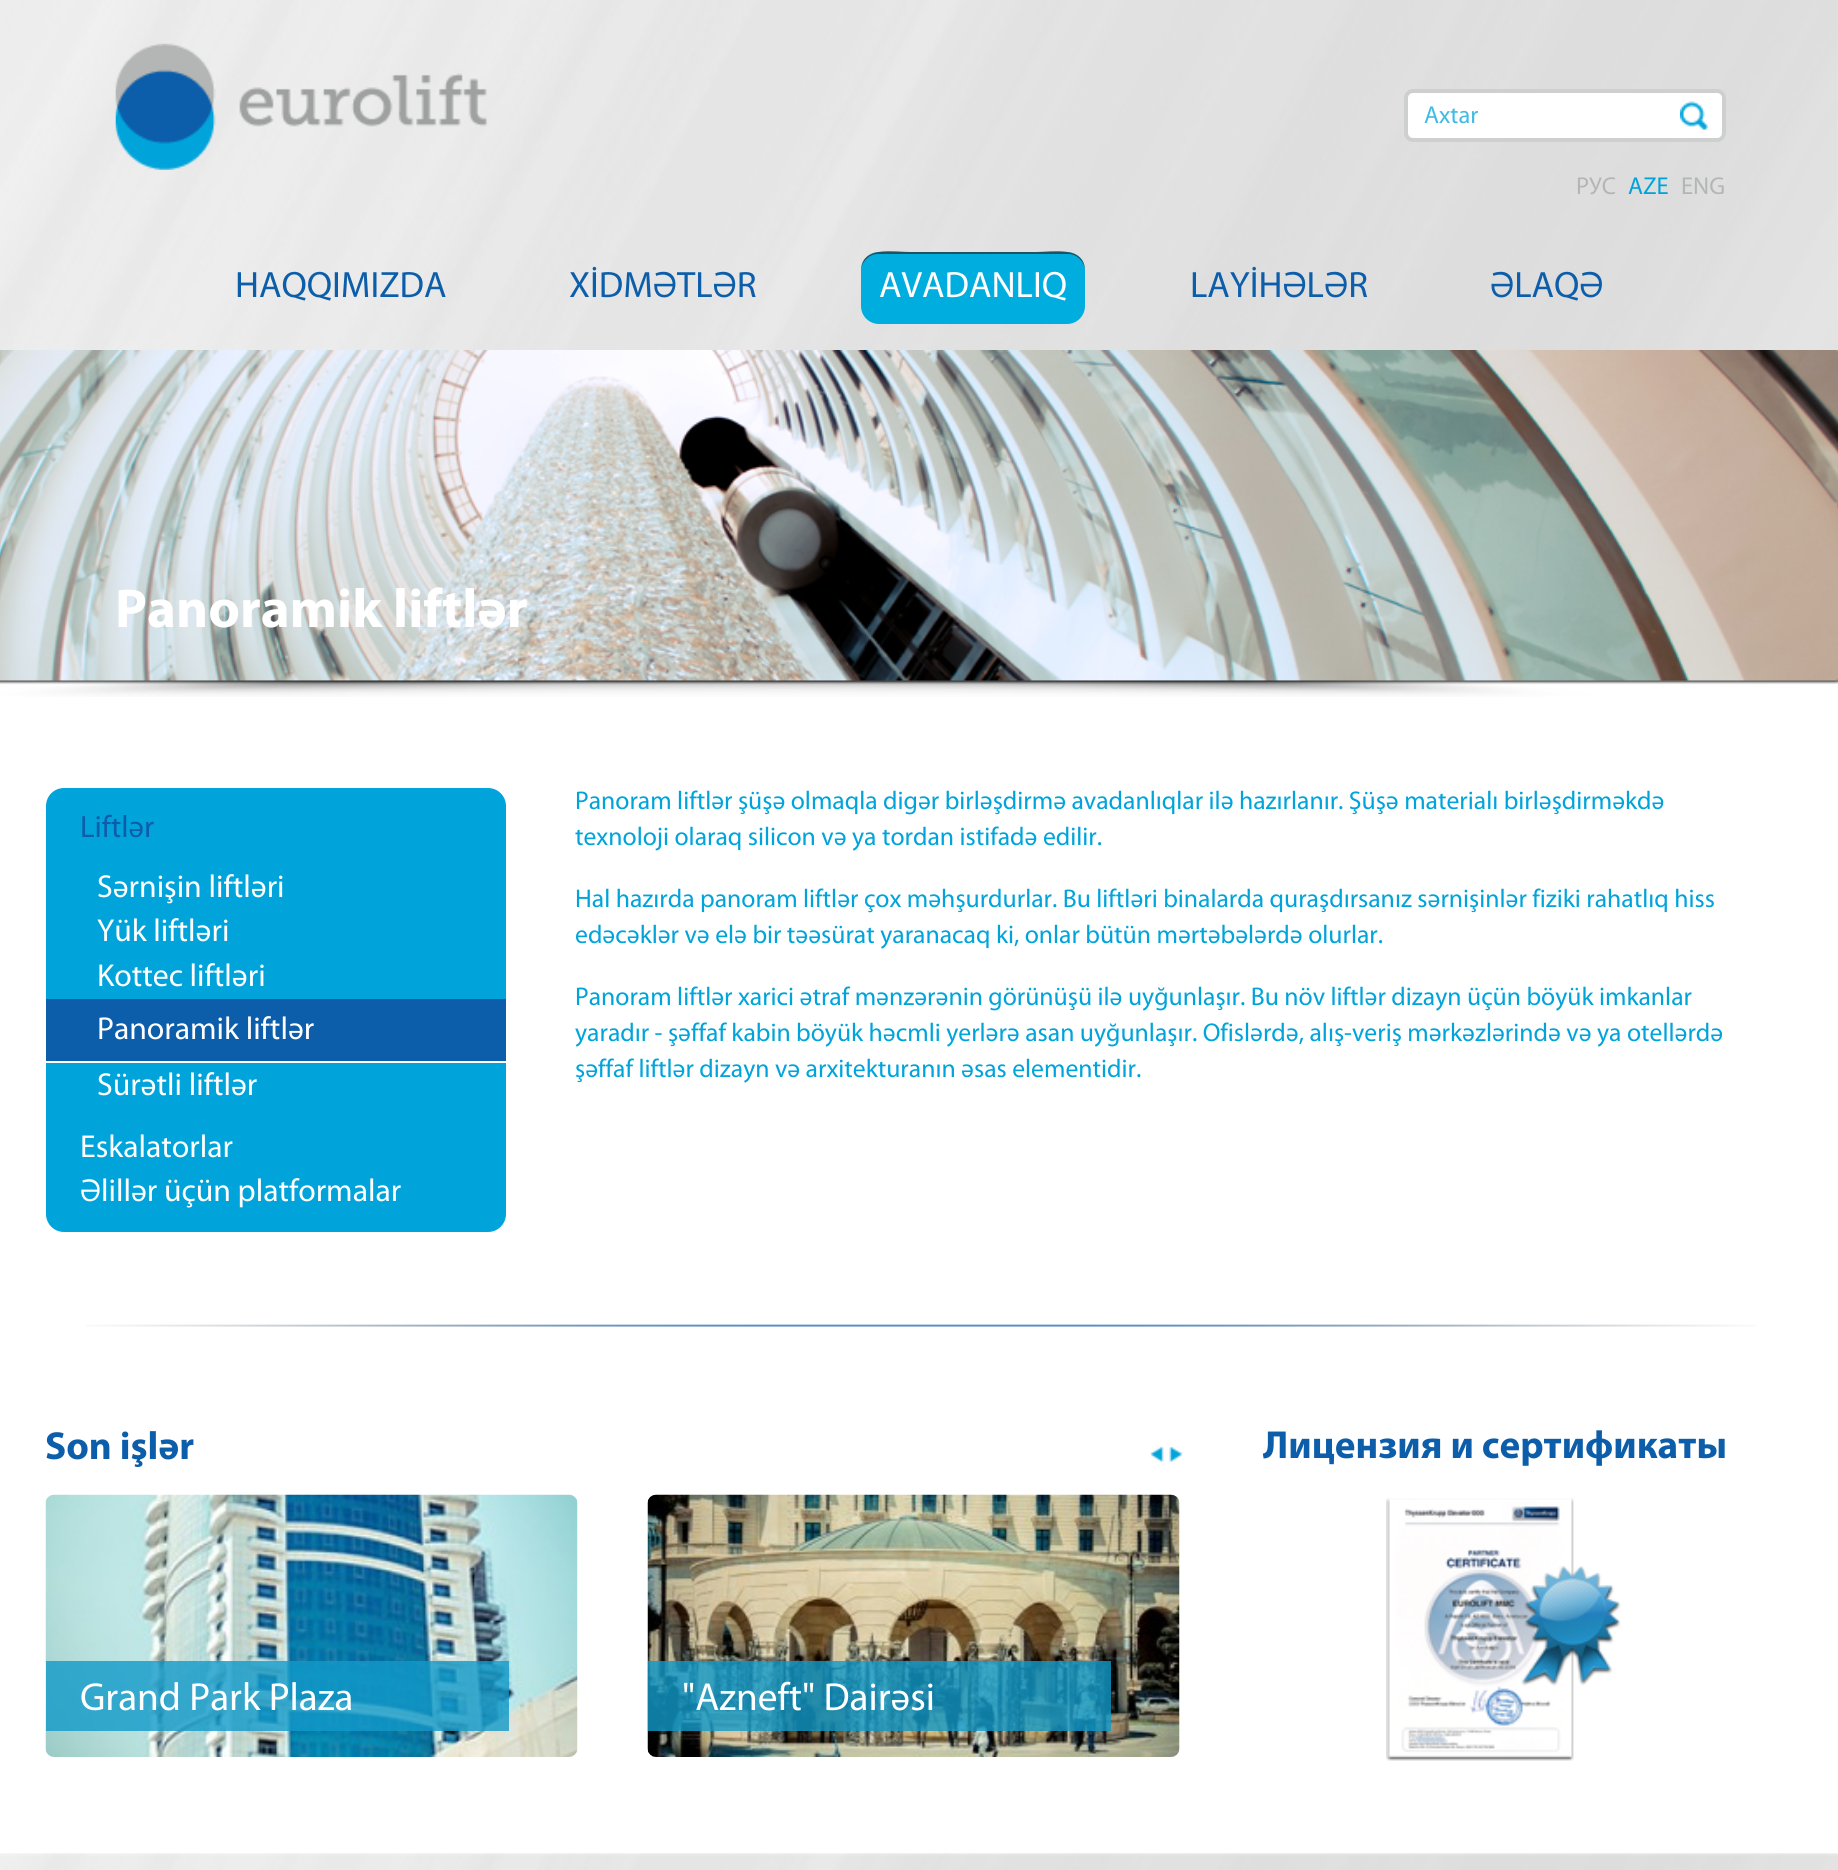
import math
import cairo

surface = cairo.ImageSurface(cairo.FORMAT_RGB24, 1838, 1870)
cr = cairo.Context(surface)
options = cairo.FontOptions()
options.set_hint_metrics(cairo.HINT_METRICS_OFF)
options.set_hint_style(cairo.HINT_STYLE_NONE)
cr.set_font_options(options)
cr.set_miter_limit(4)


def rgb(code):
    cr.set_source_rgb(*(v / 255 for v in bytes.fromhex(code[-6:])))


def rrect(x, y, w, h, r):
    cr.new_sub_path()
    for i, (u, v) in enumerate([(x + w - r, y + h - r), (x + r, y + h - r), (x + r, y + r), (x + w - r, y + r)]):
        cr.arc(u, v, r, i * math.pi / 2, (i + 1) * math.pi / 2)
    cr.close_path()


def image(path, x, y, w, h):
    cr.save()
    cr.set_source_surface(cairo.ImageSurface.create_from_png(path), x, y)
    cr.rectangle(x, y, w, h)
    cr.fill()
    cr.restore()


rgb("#ffffff")
cr.paint()
image("img/1.png", 0, 0, 1838, 350)
image("img/2.png", 115, 43, 372, 127)
rgb("#ffffff")
rrect(1406, 91, 318, 49, 7)
cr.fill_preserve()
rgb("#cecfcf")
cr.set_line_width(4)
cr.stroke()
image("img/3.png", 1680, 101, 28, 29)
rgb("#00addf")
rrect(861, 252, 224, 72, 18)
cr.fill()
cr.set_source_rgba(0.196, 0.196, 0.196, 0.75)
cr.new_path()
cr.move_to(878, 254)
cr.line_to(1068, 254)
cr.curve_to(1077, 254, 1085, 262, 1085, 271)
cr.curve_to(1085, 245, 1051, 252, 1036, 252)
cr.line_to(910, 252)
cr.curve_to(895, 252, 861, 245, 861, 271)
cr.curve_to(861, 262, 869, 254, 878, 254)
cr.close_path()
cr.fill()
image("img/4.png", 0, 350, 1838, 347)
rgb("#00a4db")
rrect(46, 788, 460, 444, 18)
cr.fill()
rgb("#0d5eaa")
cr.rectangle(46, 999, 460, 62)
cr.fill()
rgb("#ffffff")
cr.rectangle(46, 1061, 460, 2)
cr.fill()
image("img/5.png", 86, 1324, 1670, 3)
image("img/6.png", 1150, 1446, 14, 16)
image("img/7.png", 1169, 1446, 14, 16)
image("img/8.png", 45, 1494, 533, 263)
cr.set_source_rgba(0.071, 0.604, 0.788, 0.8)
cr.rectangle(46, 1661, 463, 70)
cr.fill()
image("img/9.png", 647, 1494, 533, 263)
cr.rectangle(648, 1661, 463, 70)
cr.fill()
image("img/10.png", 1386, 1498, 235, 263)
image("img/11.png", 0, 1853, 1838, 17)
cr.select_font_face("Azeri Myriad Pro")
cr.set_font_size(24.5)
rgb("#40bbe4")
cr.move_to(1424, 123)
cr.show_text("Axtar")
rgb("#b4b5b5")
cr.move_to(1576, 194)
cr.show_text("РУС")
rgb("#00a4db")
cr.move_to(1628, 194)
cr.show_text("AZE")
rgb("#b4b5b5")
cr.move_to(1681, 194)
cr.show_text("ENG")
cr.set_font_size(36.75)
rgb("#0d5eaa")
cr.move_to(235, 297)
cr.show_text("HAQQIMIZDA")
cr.move_to(569, 297)
cr.show_text("XİDMƏTLƏR")
rgb("#ffffff")
cr.move_to(879, 297)
cr.show_text("AVADANLIQ")
rgb("#0d5eaa")
cr.move_to(1190, 297)
cr.show_text("LAYİHƏLƏR")
cr.move_to(1490, 297)
cr.show_text("ƏLAQƏ")
cr.select_font_face("Azeri Myriad Pro", cairo.FONT_SLANT_NORMAL, cairo.FONT_WEIGHT_BOLD)
cr.set_font_size(55)
rgb("#ffffff")
cr.move_to(115, 627)
cr.show_text("Panoramik liftlər")
cr.select_font_face("Azeri Myriad Pro")
cr.set_font_size(31)
rgb("#0d5eaa")
cr.move_to(80, 837)
cr.show_text("Liftlər")
cr.set_font_size(31.8)
rgb("#ffffff")
for x, y, s in [
    (97, 897, "Sərnişin liftləri"),
    (97, 941, "Yük liftləri"),
    (97, 986, "Kottec liftləri"),
    (97, 1039, "Panoramik liftlər"),
    (97, 1095, "Sürətli liftlər"),
    (80, 1157, "Eskalatorlar"),
    (80, 1201, "Əlillər üçün platformalar"),
]:
    cr.move_to(x, y)
    cr.show_text(s)
cr.set_font_size(25.7)
rgb("#00a4db")
for x, y, s in [
    (575, 809, "Panoram liftlər şüşə olmaqla digər birləşdirmə avadanlıqlar ilə hazırlanır. Şüşə materialı birləşdirməkdə"),
    (575, 845, "texnoloji olaraq silicon və ya tordan istifadə edilir."),
    (575, 907, "Hal hazırda panoram liftlər çox məhşurdurlar. Bu liftləri binalarda quraşdırsanız sərnişinlər fiziki rahatlıq hiss"),
    (575, 943, "edəcəklər və elə bir təəsürat yaranacaq ki, onlar bütün mərtəbələrdə olurlar."),
    (575, 1005, "Panoram liftlər xarici ətraf mənzərənin görünüşü ilə uyğunlaşır. Bu növ liftlər dizayn üçün böyük imkanlar"),
    (575, 1041, "yaradır - şəffaf kabin böyük həcmli yerlərə asan uyğunlaşır. Ofislərdə, alış-veriş mərkəzlərində və ya otellərdə"),
    (575, 1077, "şəffaf liftlər dizayn və arxitekturanın əsas elementidir."),
]:
    cr.move_to(x, y)
    cr.show_text(s)
cr.select_font_face("Azeri Myriad Pro", cairo.FONT_SLANT_NORMAL, cairo.FONT_WEIGHT_BOLD)
cr.set_font_size(39.25)
rgb("#0d5eaa")
cr.move_to(45, 1459)
cr.show_text("Son işlər")
cr.select_font_face("Azeri Myriad Pro")
rgb("#ffffff")
cr.move_to(80, 1710)
cr.show_text("Grand Park Plaza")
cr.move_to(682, 1710)
cr.show_text("\"Azneft\" Dairəsi")
cr.select_font_face("Azeri Myriad Pro", cairo.FONT_SLANT_NORMAL, cairo.FONT_WEIGHT_BOLD)
rgb("#0d5eaa")
cr.move_to(1263, 1458)
cr.show_text("Лицензия и сертификаты")
surface.write_to_png("page.png")
